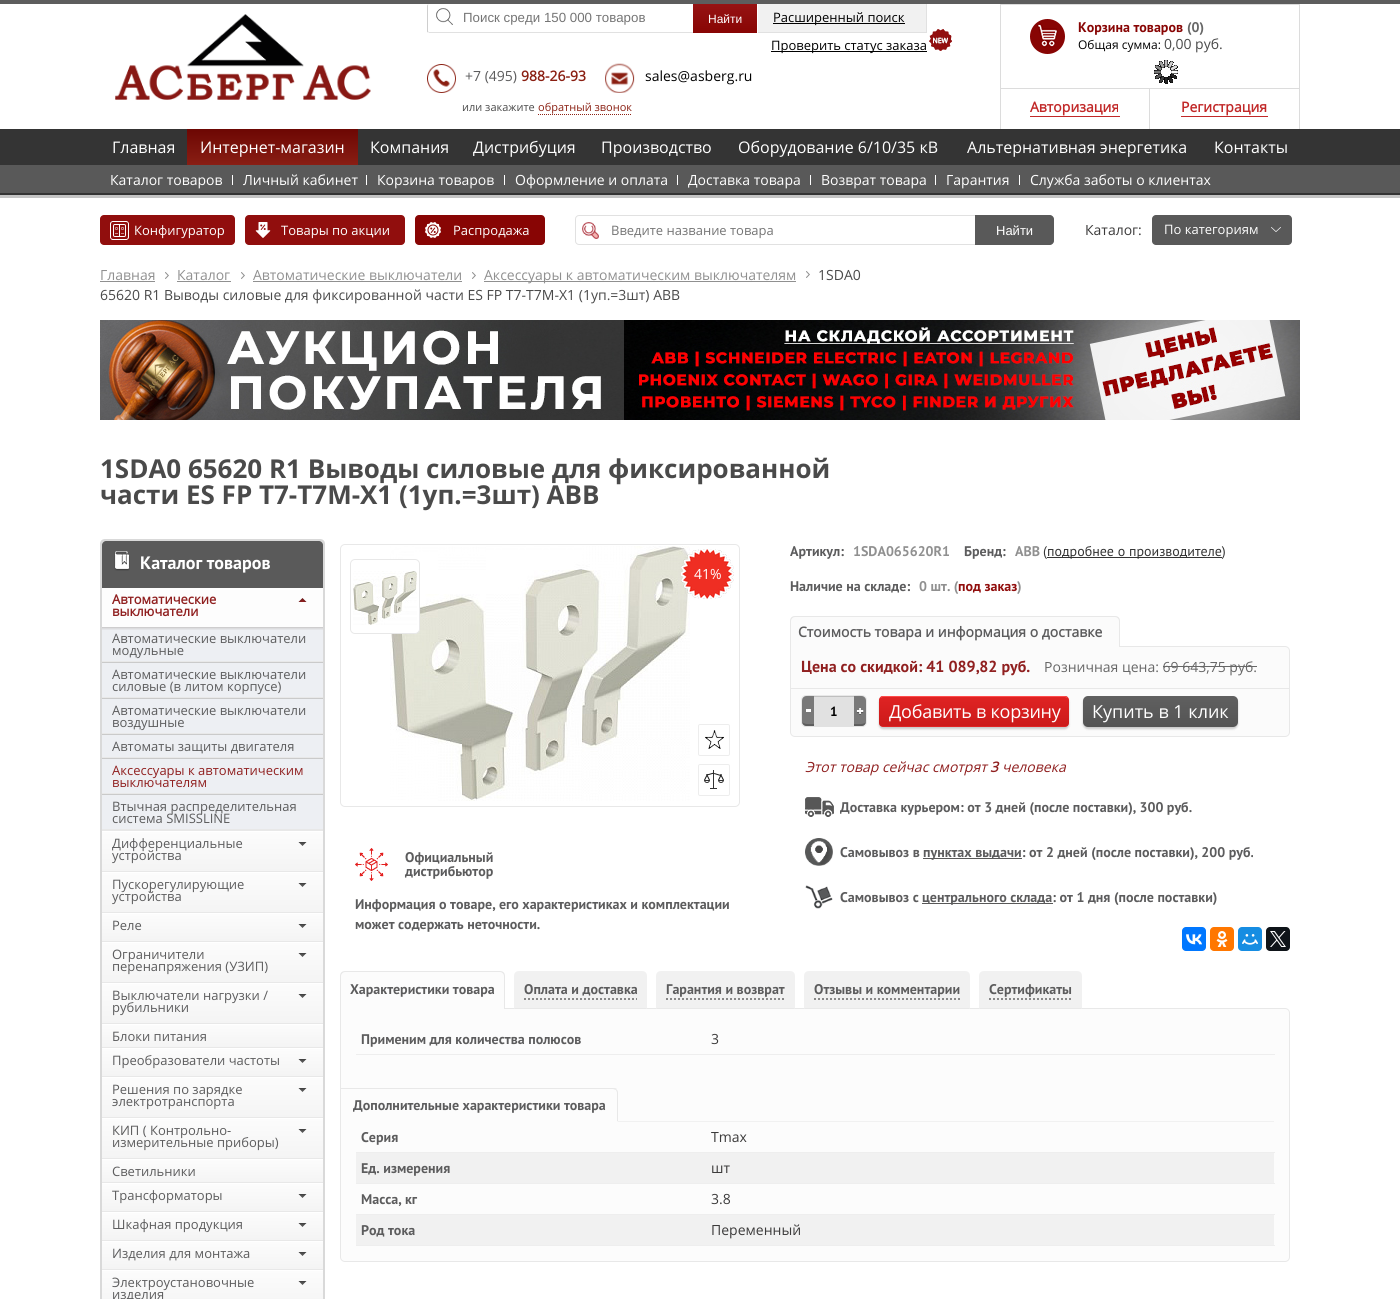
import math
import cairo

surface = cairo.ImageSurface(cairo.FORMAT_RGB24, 1400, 1299)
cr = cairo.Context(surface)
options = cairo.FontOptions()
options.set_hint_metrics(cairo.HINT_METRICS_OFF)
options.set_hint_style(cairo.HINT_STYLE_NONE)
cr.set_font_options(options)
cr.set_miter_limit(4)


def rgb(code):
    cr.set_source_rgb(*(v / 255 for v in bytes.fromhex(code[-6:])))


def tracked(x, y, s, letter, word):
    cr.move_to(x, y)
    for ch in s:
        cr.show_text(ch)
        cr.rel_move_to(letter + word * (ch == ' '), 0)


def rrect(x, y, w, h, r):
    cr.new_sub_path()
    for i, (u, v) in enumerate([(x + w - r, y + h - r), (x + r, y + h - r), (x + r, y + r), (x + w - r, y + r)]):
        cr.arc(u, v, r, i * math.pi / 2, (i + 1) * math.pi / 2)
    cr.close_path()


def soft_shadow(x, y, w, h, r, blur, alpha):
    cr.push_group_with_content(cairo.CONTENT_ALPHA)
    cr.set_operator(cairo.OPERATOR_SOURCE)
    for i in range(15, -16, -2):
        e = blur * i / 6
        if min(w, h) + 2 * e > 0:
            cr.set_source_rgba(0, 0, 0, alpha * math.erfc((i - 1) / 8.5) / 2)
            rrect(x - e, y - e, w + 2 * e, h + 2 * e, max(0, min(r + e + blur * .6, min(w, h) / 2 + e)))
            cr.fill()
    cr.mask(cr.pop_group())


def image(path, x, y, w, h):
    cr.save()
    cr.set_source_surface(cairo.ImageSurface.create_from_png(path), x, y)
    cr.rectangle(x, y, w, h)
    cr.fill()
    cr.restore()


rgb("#ffffff")
cr.paint()
rgb("#5d5d5d")
cr.rectangle(0, 0, 1400, 4)
cr.fill()
image("img/1.png", 115, 14, 256, 86)
image("img/2.png", 436, 8, 17, 17)
rgb("#e1e1e1")
cr.new_path()
cr.move_to(694, 33)
cr.line_to(429, 33)
cr.line_to(428, 32)
cr.line_to(429, 32)
cr.line_to(693, 32)
cr.close_path()
cr.fill()
rgb("#cecece")
cr.new_path()
cr.move_to(429, 4)
cr.curve_to(428, 4, 427, 5, 427, 6)
cr.line_to(427, 31)
cr.curve_to(427, 31.5, 427, 32, 427.5, 32.5)
cr.line_to(428.5, 31.5)
cr.line_to(428, 31)
cr.line_to(428, 6)
cr.curve_to(428, 5, 428, 4, 429, 4)
cr.close_path()
cr.fill()
gradient = cairo.LinearGradient(725, 4, 725, 33)
gradient.add_color_stop_rgba(0, 0.588, 0.075, 0.075, 1)
gradient.add_color_stop_rgba(1, 0.533, 0.02, 0.016, 1)
cr.set_source(gradient)
cr.rectangle(693, 4, 64, 29)
cr.fill()
for x, y, w, h, color in [
    (758, 4, 168, 28, "#f1f1f1"),
    (926, 4, 1, 29, "#e1e1e1"),
    (758, 32, 169, 1, "#e1e1e1"),
    (773, 23, 132, 1, "#000000"),
    (771, 51, 156, 1, "#000000"),
]:
    rgb(color)
    cr.rectangle(x, y, w, h)
    cr.fill()
image("img/3.png", 929, 29, 23, 22)
image("img/4.png", 427, 64, 29, 29)
image("img/5.png", 605, 63, 30, 30)
cr.new_path()
cr.move_to(538, 114.5)
cr.line_to(632, 114.5)
rgb("#8d2417")
cr.set_line_width(1)
cr.set_dash([1, 1])
cr.stroke()
cr.rectangle(1000.5, 4.5, 299, 84)
rgb("#dcdcdc")
cr.set_dash([])
cr.stroke()
image("img/6.png", 1030, 19, 35, 35)
image("img/7.png", 1154, 60, 24, 24)
for x, y, w, h, color in [
    (1299, 89, 1, 40, "#dcdcdc"),
    (1000, 89, 1, 40, "#dcdcdc"),
    (1149, 89, 1, 40, "#dcdcdc"),
    (1030, 116, 90, 1, "#c12828"),
    (1181, 116, 87, 1, "#c12828"),
    (0, 129, 1400, 66, "#343434"),
]:
    rgb(color)
    cr.rectangle(x, y, w, h)
    cr.fill()
gradient = cairo.LinearGradient(273, 129, 273, 165)
gradient.add_color_stop_rgba(0, 0.427, 0.027, 0.012, 1)
gradient.add_color_stop_rgba(1, 0.537, 0.118, 0.078, 1)
cr.set_source(gradient)
cr.rectangle(187, 129, 171, 36)
cr.fill()
for x, y, w, h, color in [
    (0, 165, 1400, 28, "#595959"),
    (232, 175, 1, 10, "#ffffff"),
    (366, 175, 1, 10, "#ffffff"),
    (504, 175, 1, 10, "#ffffff"),
    (677, 175, 1, 10, "#ffffff"),
    (810, 175, 1, 10, "#ffffff"),
    (935, 175, 1, 10, "#ffffff"),
    (1019, 175, 1, 10, "#ffffff"),
    (0, 195, 1400, 3, "#c4c4c4"),
]:
    rgb(color)
    cr.rectangle(x, y, w, h)
    cr.fill()
rgb("#910e0d")
rrect(100, 215, 135, 30, 4)
cr.fill()
image("img/8.png", 110, 221, 19, 19)
rrect(245, 215, 160, 30, 4)
cr.fill()
image("img/9.png", 255, 222, 16, 16)
rgb("#880504")
rrect(415, 215, 130, 30, 4)
cr.fill()
image("img/10.png", 425, 222, 16, 16)
rrect(575.5, 215.5, 443, 29, 3.5)
rgb("#e1e1e1")
cr.stroke()
image("img/11.png", 582, 222, 17, 17)
rgb("#595959")
cr.new_path()
cr.move_to(975, 215)
cr.line_to(1050, 215)
cr.curve_to(1052, 215, 1054, 217, 1054, 219)
cr.line_to(1054, 241)
cr.curve_to(1054, 243, 1052, 245, 1050, 245)
cr.line_to(975, 245)
cr.close_path()
cr.fill()
rrect(1152, 215, 140, 30, 4)
cr.fill()
image("img/12.png", 1271, 227, 10, 5)
rgb("#909090")
cr.rectangle(100, 281, 55, 1)
cr.fill()
image("img/13.png", 165, 272, 4, 7)
cr.rectangle(177, 281, 54, 1)
cr.fill()
image("img/13.png", 241, 272, 4, 7)
cr.rectangle(253, 281, 209, 1)
cr.fill()
image("img/13.png", 472, 272, 4, 7)
cr.rectangle(484, 281, 312, 1)
cr.fill()
image("img/13.png", 806, 271, 4, 7)
image("img/14.png", 100, 320, 1200, 100)
rgb("#d9d9d9")
cr.new_path()
cr.move_to(105, 539)
cr.line_to(320, 539)
cr.curve_to(323, 539, 325, 541, 325, 544)
cr.line_to(325, 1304)
cr.line_to(100, 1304)
cr.line_to(100, 544)
cr.curve_to(100, 541, 102, 539, 105, 539)
cr.close_path()
cr.fill()
rgb("#5a5a5a")
cr.new_path()
cr.move_to(106, 541)
cr.line_to(319, 541)
cr.curve_to(321, 541, 323, 543, 323, 545)
cr.line_to(323, 588)
cr.line_to(102, 588)
cr.line_to(102, 545)
cr.curve_to(102, 543, 104, 541, 106, 541)
cr.close_path()
cr.fill()
image("img/15.png", 114, 551, 16, 20)
for x, y, w, h, color in [
    (102, 831, 221, 440, "#ffffff"),
    (102, 829, 221, 2, "#e8e8e8"),
    (102, 588, 221, 39, "#fdfdfd"),
]:
    rgb(color)
    cr.rectangle(x, y, w, h)
    cr.fill()
image("img/16.png", 298, 598, 9, 4)
rgb("#edeff3")
cr.rectangle(102, 627, 221, 34)
cr.fill()
image("img/17.png", 102, 627, 221, 3)
for x, y, w, h, color in [
    (102, 661, 221, 1, "#e8e8e8"),
    (102, 662, 221, 1, "#cacaca"),
    (102, 697, 221, 1, "#e8e8e8"),
    (102, 663, 221, 34, "#edeff3"),
    (102, 698, 221, 1, "#cacaca"),
    (102, 733, 221, 1, "#e8e8e8"),
    (102, 699, 221, 34, "#edeff3"),
    (102, 734, 221, 1, "#cacaca"),
    (102, 757, 221, 1, "#e8e8e8"),
    (102, 735, 221, 22, "#edeff3"),
    (102, 758, 221, 1, "#cacaca"),
    (102, 793, 221, 1, "#e8e8e8"),
    (102, 759, 221, 34, "#edeff3"),
    (102, 794, 221, 1, "#cacaca"),
    (102, 795, 221, 34, "#edeff3"),
    (102, 871, 221, 1, "#e8e8e8"),
]:
    rgb(color)
    cr.rectangle(x, y, w, h)
    cr.fill()
gradient = cairo.LinearGradient(213, 871, 213, 832)
gradient.add_color_stop_rgba(0, 0.957, 0.957, 0.957, 1)
gradient.add_color_stop_rgba(1, 0.988, 0.988, 0.988, 1)
cr.set_source(gradient)
cr.rectangle(102, 832, 221, 39)
cr.fill()
image("img/18.png", 298, 842, 9, 4)
rgb("#e8e8e8")
cr.rectangle(102, 912, 221, 1)
cr.fill()
gradient = cairo.LinearGradient(213, 912, 213, 873)
gradient.add_color_stop_rgba(0, 0.957, 0.957, 0.957, 1)
gradient.add_color_stop_rgba(1, 0.988, 0.988, 0.988, 1)
cr.set_source(gradient)
cr.rectangle(102, 873, 221, 39)
cr.fill()
image("img/18.png", 298, 883, 9, 4)
rgb("#e8e8e8")
cr.rectangle(102, 941, 221, 1)
cr.fill()
gradient = cairo.LinearGradient(213, 941, 213, 914)
gradient.add_color_stop_rgba(0, 0.957, 0.957, 0.957, 1)
gradient.add_color_stop_rgba(1, 0.988, 0.988, 0.988, 1)
cr.set_source(gradient)
cr.rectangle(102, 914, 221, 27)
cr.fill()
image("img/19.png", 298, 924, 9, 4)
rgb("#e8e8e8")
cr.rectangle(102, 982, 221, 1)
cr.fill()
gradient = cairo.LinearGradient(213, 982, 213, 943)
gradient.add_color_stop_rgba(0, 0.957, 0.957, 0.957, 1)
gradient.add_color_stop_rgba(1, 0.988, 0.988, 0.988, 1)
cr.set_source(gradient)
cr.rectangle(102, 943, 221, 39)
cr.fill()
image("img/18.png", 298, 953, 9, 4)
rgb("#e8e8e8")
cr.rectangle(102, 1023, 221, 1)
cr.fill()
gradient = cairo.LinearGradient(213, 1023, 213, 984)
gradient.add_color_stop_rgba(0, 0.957, 0.957, 0.957, 1)
gradient.add_color_stop_rgba(1, 0.988, 0.988, 0.988, 1)
cr.set_source(gradient)
cr.rectangle(102, 984, 221, 39)
cr.fill()
image("img/18.png", 298, 994, 9, 4)
rgb("#e8e8e8")
cr.rectangle(102, 1047, 221, 1)
cr.fill()
gradient = cairo.LinearGradient(213, 1047, 213, 1025)
gradient.add_color_stop_rgba(0, 0.957, 0.957, 0.957, 1)
gradient.add_color_stop_rgba(1, 0.988, 0.988, 0.988, 1)
cr.set_source(gradient)
cr.rectangle(102, 1025, 221, 22)
cr.fill()
rgb("#e8e8e8")
cr.rectangle(102, 1076, 221, 1)
cr.fill()
gradient = cairo.LinearGradient(213, 1076, 213, 1049)
gradient.add_color_stop_rgba(0, 0.957, 0.957, 0.957, 1)
gradient.add_color_stop_rgba(1, 0.988, 0.988, 0.988, 1)
cr.set_source(gradient)
cr.rectangle(102, 1049, 221, 27)
cr.fill()
image("img/19.png", 298, 1059, 9, 4)
rgb("#e8e8e8")
cr.rectangle(102, 1117, 221, 1)
cr.fill()
gradient = cairo.LinearGradient(213, 1117, 213, 1078)
gradient.add_color_stop_rgba(0, 0.957, 0.957, 0.957, 1)
gradient.add_color_stop_rgba(1, 0.988, 0.988, 0.988, 1)
cr.set_source(gradient)
cr.rectangle(102, 1078, 221, 39)
cr.fill()
image("img/18.png", 298, 1088, 9, 4)
rgb("#e8e8e8")
cr.rectangle(102, 1158, 221, 1)
cr.fill()
gradient = cairo.LinearGradient(213, 1158, 213, 1119)
gradient.add_color_stop_rgba(0, 0.957, 0.957, 0.957, 1)
gradient.add_color_stop_rgba(1, 0.988, 0.988, 0.988, 1)
cr.set_source(gradient)
cr.rectangle(102, 1119, 221, 39)
cr.fill()
image("img/18.png", 298, 1129, 9, 4)
rgb("#e8e8e8")
cr.rectangle(102, 1182, 221, 1)
cr.fill()
gradient = cairo.LinearGradient(213, 1182, 213, 1160)
gradient.add_color_stop_rgba(0, 0.957, 0.957, 0.957, 1)
gradient.add_color_stop_rgba(1, 0.988, 0.988, 0.988, 1)
cr.set_source(gradient)
cr.rectangle(102, 1160, 221, 22)
cr.fill()
rgb("#e8e8e8")
cr.rectangle(102, 1211, 221, 1)
cr.fill()
gradient = cairo.LinearGradient(213, 1211, 213, 1184)
gradient.add_color_stop_rgba(0, 0.957, 0.957, 0.957, 1)
gradient.add_color_stop_rgba(1, 0.988, 0.988, 0.988, 1)
cr.set_source(gradient)
cr.rectangle(102, 1184, 221, 27)
cr.fill()
image("img/19.png", 298, 1194, 9, 4)
rgb("#e8e8e8")
cr.rectangle(102, 1240, 221, 1)
cr.fill()
gradient = cairo.LinearGradient(213, 1240, 213, 1213)
gradient.add_color_stop_rgba(0, 0.957, 0.957, 0.957, 1)
gradient.add_color_stop_rgba(1, 0.988, 0.988, 0.988, 1)
cr.set_source(gradient)
cr.rectangle(102, 1213, 221, 27)
cr.fill()
image("img/19.png", 298, 1223, 9, 4)
rgb("#e8e8e8")
cr.rectangle(102, 1269, 221, 1)
cr.fill()
gradient = cairo.LinearGradient(213, 1269, 213, 1242)
gradient.add_color_stop_rgba(0, 0.957, 0.957, 0.957, 1)
gradient.add_color_stop_rgba(1, 0.988, 0.988, 0.988, 1)
cr.set_source(gradient)
cr.rectangle(102, 1242, 221, 27)
cr.fill()
image("img/19.png", 298, 1252, 9, 4)
gradient = cairo.LinearGradient(213, 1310, 213, 1271)
gradient.add_color_stop_rgba(0, 0.957, 0.957, 0.957, 1)
gradient.add_color_stop_rgba(1, 0.988, 0.988, 0.988, 1)
cr.set_source(gradient)
cr.rectangle(102, 1271, 221, 28)
cr.fill()
image("img/18.png", 298, 1281, 9, 4)
rrect(340.5, 544.5, 399, 262, 4.5)
rgb("#e8e8e8")
cr.stroke()
image("img/21.png", 390, 546, 300, 255)
rgb("#ffffff")
rrect(350.5, 559.5, 69, 74, 4.5)
cr.fill_preserve()
rgb("#e8e8e8")
cr.stroke()
image("img/20.png", 353, 571, 64, 54)
image("img/22.png", 681, 549, 53, 50)
image("img/23.png", 705, 730, 19, 19)
rrect(698.5, 724.5, 31, 31, 1.5)
rgb("#ededed")
cr.stroke()
image("img/24.png", 704, 770, 20, 19)
rrect(698.5, 764.5, 31, 31, 1.5)
cr.stroke()
image("img/25.png", 355, 848, 33, 33)
rgb("#343434")
cr.rectangle(1047, 557, 175, 1)
cr.fill()
rgb("#fbfbfb")
cr.new_path()
cr.move_to(790.5, 646.5)
cr.line_to(1285, 646.5)
cr.curve_to(1287.5, 646.5, 1289.5, 648.5, 1289.5, 651)
cr.line_to(1289.5, 732)
cr.curve_to(1289.5, 734.5, 1287.5, 736.5, 1285, 736.5)
cr.line_to(795, 736.5)
cr.curve_to(792.5, 736.5, 790.5, 734.5, 790.5, 732)
cr.close_path()
cr.fill_preserve()
rgb("#e8e8e8")
cr.stroke()
rgb("#fbfbfb")
cr.new_path()
cr.move_to(795, 616)
cr.line_to(1115, 616)
cr.curve_to(1118, 616, 1120, 618, 1120, 621)
cr.line_to(1120, 647)
cr.line_to(790, 647)
cr.line_to(790, 621)
cr.curve_to(790, 618, 792, 616, 795, 616)
cr.close_path()
cr.fill()
rgb("#e8e8e8")
cr.set_fill_rule(cairo.FILL_RULE_EVEN_ODD)
cr.new_path()
cr.move_to(795, 616)
cr.line_to(1115, 616)
cr.curve_to(1118, 616, 1120, 618, 1120, 621)
cr.line_to(1120, 647)
cr.line_to(790, 647)
cr.line_to(790, 621)
cr.curve_to(790, 618, 792, 616, 795, 616)
cr.close_path()
cr.move_to(795, 617)
cr.line_to(1115, 617)
cr.curve_to(1117, 617, 1119, 619, 1119, 621)
cr.line_to(1119, 647)
cr.line_to(791, 647)
cr.line_to(791, 621)
cr.curve_to(791, 619, 793, 617, 795, 617)
cr.close_path()
cr.fill()
cr.rectangle(791, 688, 498, 1)
cr.fill()
rgb("#676767")
cr.rectangle(1163, 666, 94, 1)
cr.fill()
rrect(801.5, 695.5, 65, 31, 4.5)
rgb("#e8e8e8")
cr.stroke()
rgb("#e1e1e1")
rrect(802, 696, 64, 31, 4)
cr.fill()
cr.set_source_rgba(0, 0, 0, 0.15)
cr.set_fill_rule(cairo.FILL_RULE_WINDING)
cr.new_path()
cr.move_to(806, 697)
cr.line_to(862, 697)
cr.curve_to(864, 697, 866, 699, 866, 701)
cr.curve_to(866, 694, 858, 696, 853, 696)
cr.line_to(815, 696)
cr.curve_to(810, 696, 802, 694, 802, 701)
cr.curve_to(802, 699, 804, 697, 806, 697)
cr.close_path()
cr.fill()
rgb("#797979")
cr.new_path()
cr.move_to(807, 696)
cr.line_to(814, 696)
cr.line_to(814, 726)
cr.line_to(807, 726)
cr.curve_to(804, 726, 802, 724, 802, 721)
cr.line_to(802, 701)
cr.curve_to(802, 698, 804, 696, 807, 696)
cr.close_path()
cr.fill()
rgb("#5d5d5d")
cr.new_path()
cr.move_to(814, 726)
cr.line_to(814, 724)
cr.curve_to(811.5, 724, 802, 725, 802, 721)
cr.curve_to(802, 724, 804, 726, 807, 726)
cr.close_path()
cr.fill()
rgb("#ffffff")
cr.rectangle(806, 709, 5, 3)
cr.fill()
rgb("#797979")
cr.new_path()
cr.move_to(854, 696)
cr.line_to(861, 696)
cr.curve_to(864, 696, 866, 698, 866, 701)
cr.line_to(866, 721)
cr.curve_to(866, 724, 864, 726, 861, 726)
cr.line_to(854, 726)
cr.close_path()
cr.fill()
rgb("#5d5d5d")
cr.set_fill_rule(cairo.FILL_RULE_EVEN_ODD)
cr.new_path()
cr.move_to(866, 721.5)
cr.line_to(866, 721)
cr.close_path()
cr.move_to(861, 726)
cr.curve_to(864, 726, 865.5, 724.5, 866, 721.5)
cr.curve_to(865, 725, 857, 724, 854, 724)
cr.line_to(854, 726)
cr.close_path()
cr.fill()
image("img/26.png", 856, 708, 8, 7)
rgb("#000000")
soft_shadow(879, 698, 190, 31, 4, 1, 0.2)
cr.save()
cr.set_fill_rule(cairo.FILL_RULE_WINDING)
rrect(879, 696, 190, 31, 4)
cr.clip()
gradient = cairo.LinearGradient(974, 668, 974, 697)
gradient.add_color_stop_rgba(0, 0.875, 0.137, 0.137, 1)
gradient.add_color_stop_rgba(1, 0.8, 0.102, 0.102, 1)
cr.set_source(gradient)
cr.rectangle(879, 696, 190, 1)
cr.fill()
gradient = cairo.LinearGradient(974, 697, 974, 726)
gradient.add_color_stop_rgba(0, 0.875, 0.137, 0.137, 1)
gradient.add_color_stop_rgba(1, 0.8, 0.102, 0.102, 1)
cr.set_source(gradient)
cr.rectangle(879, 697, 190, 29)
cr.fill()
gradient = cairo.LinearGradient(974, 726, 974, 755)
gradient.add_color_stop_rgba(0, 0.875, 0.137, 0.137, 1)
gradient.add_color_stop_rgba(1, 0.8, 0.102, 0.102, 1)
cr.set_source(gradient)
cr.rectangle(879, 726, 190, 1)
cr.fill()
cr.restore()
cr.new_path()
cr.move_to(880.5, 697.5)
cr.line_to(882.5, 696.5)
cr.line_to(1034.5, 696.5)
cr.line_to(1065, 696.5)
cr.line_to(1067.5, 697.5)
rgb("#ff4b4b")
cr.stroke()
rgb("#000000")
soft_shadow(1083, 698, 155, 31, 5, 1, 0.2)
gradient = cairo.LinearGradient(1161, 727, 1161, 696)
gradient.add_color_stop_rgba(0, 0.329, 0.329, 0.329, 1)
gradient.add_color_stop_rgba(1, 0.376, 0.376, 0.376, 1)
cr.set_source(gradient)
rrect(1083, 696, 155, 31, 5)
cr.fill()
image("img/27.png", 805, 797, 29, 20)
image("img/28.png", 805, 838, 28, 28)
rgb("#585858")
cr.rectangle(923, 858, 99, 1)
cr.fill()
image("img/29.png", 805, 885, 28, 24)
cr.rectangle(922, 903, 131, 1)
cr.fill()
rgb("#0077ff")
rrect(1182, 927, 24, 24, 4)
cr.fill()
image("img/30.png", 1186, 934, 16, 11)
rgb("#ff7700")
rrect(1210, 927, 24, 24, 4)
cr.fill()
image("img/31.png", 1216, 931, 12, 16)
rgb("#168de2")
rrect(1238, 927, 24, 24, 4)
cr.fill()
image("img/32.png", 1242, 934, 16, 11)
rgb("#0f1419")
rrect(1266, 927, 24, 24, 4)
cr.fill()
image("img/33.png", 1270, 931, 16, 16)
rgb("#fcfcfc")
cr.new_path()
cr.move_to(340.5, 1008.5)
cr.line_to(1285, 1008.5)
cr.curve_to(1287.5, 1008.5, 1289.5, 1010.5, 1289.5, 1013)
cr.line_to(1289.5, 1257)
cr.curve_to(1289.5, 1259.5, 1287.5, 1261.5, 1285, 1261.5)
cr.line_to(345, 1261.5)
cr.curve_to(342.5, 1261.5, 340.5, 1259.5, 340.5, 1257)
cr.close_path()
cr.fill_preserve()
rgb("#e8e8e8")
cr.stroke()
rgb("#fcfcfc")
cr.new_path()
cr.move_to(345, 971)
cr.line_to(500, 971)
cr.curve_to(503, 971, 505, 973, 505, 976)
cr.line_to(505, 1009)
cr.line_to(340, 1009)
cr.line_to(340, 976)
cr.curve_to(340, 973, 342, 971, 345, 971)
cr.close_path()
cr.fill()
rgb("#e8e8e8")
cr.new_path()
cr.move_to(345, 971)
cr.line_to(500, 971)
cr.curve_to(503, 971, 505, 973, 505, 976)
cr.line_to(505, 1009)
cr.line_to(340, 1009)
cr.line_to(340, 976)
cr.curve_to(340, 973, 342, 971, 345, 971)
cr.close_path()
cr.move_to(345, 972)
cr.line_to(500, 972)
cr.curve_to(502, 972, 504, 974, 504, 976)
cr.line_to(504, 1009)
cr.line_to(341, 1009)
cr.line_to(341, 976)
cr.curve_to(341, 974, 343, 972, 345, 972)
cr.close_path()
cr.fill()
rgb("#f1f1f1")
cr.new_path()
cr.move_to(519, 971)
cr.line_to(642, 971)
cr.curve_to(645, 971, 647, 973, 647, 976)
cr.line_to(647, 1009)
cr.line_to(514, 1009)
cr.line_to(514, 976)
cr.curve_to(514, 973, 516, 971, 519, 971)
cr.close_path()
cr.fill()
rgb("#e8e8e8")
cr.set_fill_rule(cairo.FILL_RULE_WINDING)
cr.new_path()
cr.move_to(647, 1009)
cr.line_to(646, 1008)
cr.line_to(515, 1008)
cr.line_to(514, 1009)
cr.close_path()
cr.fill()
cr.new_path()
cr.move_to(524, 999)
cr.line_to(637, 999)
rgb("#888888")
cr.set_line_width(2)
cr.set_dash([2, 2])
cr.stroke()
rgb("#f1f1f1")
cr.new_path()
cr.move_to(661, 971)
cr.line_to(790, 971)
cr.curve_to(793, 971, 795, 973, 795, 976)
cr.line_to(795, 1009)
cr.line_to(656, 1009)
cr.line_to(656, 976)
cr.curve_to(656, 973, 658, 971, 661, 971)
cr.close_path()
cr.fill()
rgb("#e8e8e8")
cr.new_path()
cr.move_to(795, 1009)
cr.line_to(794, 1008)
cr.line_to(657, 1008)
cr.line_to(656, 1009)
cr.close_path()
cr.fill()
cr.new_path()
cr.move_to(666, 999)
cr.line_to(785, 999)
rgb("#888888")
cr.stroke()
rgb("#f1f1f1")
cr.new_path()
cr.move_to(809, 971)
cr.line_to(965, 971)
cr.curve_to(968, 971, 970, 973, 970, 976)
cr.line_to(970, 1009)
cr.line_to(804, 1009)
cr.line_to(804, 976)
cr.curve_to(804, 973, 806, 971, 809, 971)
cr.close_path()
cr.fill()
rgb("#e8e8e8")
cr.new_path()
cr.move_to(970, 1009)
cr.line_to(969, 1008)
cr.line_to(805, 1008)
cr.line_to(804, 1009)
cr.close_path()
cr.fill()
cr.new_path()
cr.move_to(814, 999)
cr.line_to(960, 999)
rgb("#888888")
cr.stroke()
rgb("#f1f1f1")
cr.new_path()
cr.move_to(984, 971)
cr.line_to(1077, 971)
cr.curve_to(1080, 971, 1082, 973, 1082, 976)
cr.line_to(1082, 1009)
cr.line_to(979, 1009)
cr.line_to(979, 976)
cr.curve_to(979, 973, 981, 971, 984, 971)
cr.close_path()
cr.fill()
rgb("#e8e8e8")
cr.new_path()
cr.move_to(1082, 1009)
cr.line_to(1081, 1008)
cr.line_to(980, 1008)
cr.line_to(979, 1009)
cr.close_path()
cr.fill()
cr.new_path()
cr.move_to(989, 999)
cr.line_to(1072, 999)
rgb("#888888")
cr.stroke()
for x, y, w, h, color in [
    (356, 1054, 919, 1, "#eeeeee"),
    (618, 1121, 656, 1, "#f1f1f1"),
    (340, 1088, 119, 1, "#e8e8e8"),
]:
    rgb(color)
    cr.rectangle(x, y, w, h)
    cr.fill()
cr.new_path()
cr.move_to(459, 1088)
cr.line_to(459, 1089)
cr.line_to(613, 1089)
cr.line_to(616, 1090)
cr.line_to(617, 1089)
cr.curve_to(616, 1088, 614, 1088, 613, 1088)
cr.close_path()
cr.fill()
cr.new_path()
cr.move_to(617, 1121)
cr.line_to(617, 1093)
cr.curve_to(617, 1092, 616.5, 1091, 616, 1090)
cr.line_to(616.5, 1089.5)
cr.curve_to(617.5, 1090, 618, 1091.5, 618, 1093)
cr.line_to(618, 1122)
cr.close_path()
cr.fill()
rgb("#fcfcfc")
cr.new_path()
cr.move_to(618, 1122)
cr.line_to(617, 1121)
cr.line_to(459, 1121)
cr.line_to(459, 1122)
cr.close_path()
cr.fill()
for x, y, w, h, color in [
    (356, 1152, 919, 1, "#eeeeee"),
    (356, 1153, 918, 30, "#f1f1f1"),
    (356, 1183, 919, 1, "#eeeeee"),
    (356, 1214, 919, 1, "#eeeeee"),
    (356, 1215, 918, 30, "#f1f1f1"),
    (356, 1245, 919, 1, "#eeeeee"),
]:
    rgb(color)
    cr.rectangle(x, y, w, h)
    cr.fill()
cr.select_font_face("Liberation Sans")
cr.set_font_size(13.3)
rgb("#757575")
cr.move_to(463, 22)
cr.show_text("Поиск среди 150 000 товаров")
cr.set_font_size(12)
rgb("#ffffff")
cr.move_to(708, 23)
cr.show_text("Найти")
cr.select_font_face("Open Sans")
cr.set_font_size(13)
rgb("#000000")
cr.move_to(773, 22)
cr.show_text("Расширенный поиск")
cr.move_to(771, 50)
cr.show_text("Проверить статус заказа")
cr.set_font_size(14)
rgb("#5c5c5d")
cr.move_to(465, 81)
cr.show_text("+7 (495)")
cr.select_font_face("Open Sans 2", cairo.FONT_SLANT_NORMAL, cairo.FONT_WEIGHT_BOLD)
rgb("#8a1f12")
cr.move_to(521, 81)
cr.show_text("988-26-93")
cr.select_font_face("Open Sans")
rgb("#000000")
cr.move_to(645, 81)
cr.show_text("sales@asberg.ru")
cr.set_font_size(11)
rgb("#4a4a4a")
cr.move_to(462, 111)
cr.show_text("или закажите")
rgb("#8a1f12")
cr.move_to(538, 111)
cr.show_text("обратный звонок")
cr.select_font_face("PT Sans", cairo.FONT_SLANT_NORMAL, cairo.FONT_WEIGHT_BOLD)
cr.set_font_size(14)
rgb("#880504")
cr.move_to(1078, 32)
cr.show_text("Корзина товаров")
rgb("#676767")
cr.move_to(1187, 32)
cr.show_text("(0)")
cr.select_font_face("Open Sans")
cr.set_font_size(12)
rgb("#000000")
cr.move_to(1078, 49)
cr.show_text("Общая сумма:")
cr.set_font_size(14)
rgb("#4a4a4a")
cr.move_to(1164, 49)
cr.show_text("0,00 руб.")
cr.select_font_face("Open Sans 2", cairo.FONT_SLANT_NORMAL, cairo.FONT_WEIGHT_BOLD)
rgb("#c12828")
cr.move_to(1030, 112)
cr.show_text("Авторизация")
cr.move_to(1181, 112)
cr.show_text("Регистрация")
cr.select_font_face("Open Sans")
cr.set_font_size(16)
rgb("#ffffff")
for x, y, s in [
    (473, 153, "Дистрибуция"),
    (738, 153, "Оборудование 6/10/35 кВ"),
    (200, 153, "Интернет-магазин"),
]:
    cr.move_to(x, y)
    cr.show_text(s)
cr.set_font_size(14)
for x, y, s in [
    (110, 185, "Каталог товаров"),
    (243, 185, "Личный кабинет"),
    (377, 185, "Корзина товаров"),
    (515, 185, "Оформление и оплата"),
    (688, 185, "Доставка товара"),
    (821, 185, "Возврат товара"),
    (946, 185, "Гарантия"),
    (1030, 185, "Служба заботы о клиентах"),
]:
    cr.move_to(x, y)
    cr.show_text(s)
cr.set_font_size(16)
for x, y, s in [
    (112, 153, "Главная"),
    (370, 153, "Компания"),
    (601, 153, "Производство"),
    (967, 153, "Альтернативная энергетика"),
    (1214, 153, "Контакты"),
]:
    cr.move_to(x, y)
    cr.show_text(s)
cr.set_font_size(13)
for x, y, s in [
    (134, 235, "Конфигуратор"),
    (281, 235, "Товары по акции"),
    (453, 235, "Распродажа"),
]:
    cr.move_to(x, y)
    cr.show_text(s)
rgb("#757575")
cr.move_to(611, 235)
cr.show_text("Введите название товара")
cr.select_font_face("Liberation Sans")
rgb("#ffffff")
cr.move_to(996, 235)
cr.show_text("Найти")
cr.select_font_face("Open Sans")
cr.set_font_size(14)
rgb("#3c3b3b")
cr.move_to(1085, 235)
cr.show_text("Каталог:")
cr.set_font_size(13)
rgb("#ffffff")
cr.move_to(1164, 234)
cr.show_text("По категориям")
cr.set_font_size(14)
rgb("#909090")
for x, y, s in [
    (100, 280, "Главная"),
    (177, 280, "Каталог"),
    (253, 280, "Автоматические выключатели"),
    (484, 280, "Аксессуары к автоматическим выключателям"),
]:
    cr.move_to(x, y)
    cr.show_text(s)
rgb("#4a4a4a")
cr.move_to(818, 280)
cr.show_text("1SDA0")
cr.move_to(100, 300)
cr.show_text("65620 R1 Выводы силовые для фиксированной части ES FP T7-T7M-X1 (1уп.=3шт) ABB")
cr.select_font_face("Open Sans", cairo.FONT_SLANT_NORMAL, cairo.FONT_WEIGHT_BOLD)
cr.set_font_size(26)
cr.move_to(100, 478)
cr.show_text("1SDA0 65620 R1 Выводы силовые для фиксированной")
cr.move_to(100, 504)
cr.show_text("части ES FP T7-T7M-X1 (1уп.=3шт) ABB")
cr.select_font_face("PT Sans", cairo.FONT_SLANT_NORMAL, cairo.FONT_WEIGHT_BOLD)
cr.set_font_size(18)
rgb("#ffffff")
cr.move_to(140, 569)
cr.show_text("Каталог товаров")
cr.select_font_face("Open Sans 2", cairo.FONT_SLANT_NORMAL, cairo.FONT_WEIGHT_BOLD)
cr.set_font_size(13)
rgb("#902020")
cr.move_to(112, 604)
cr.show_text("Автоматические")
cr.move_to(112, 616)
cr.show_text("выключатели")
cr.select_font_face("Open Sans")
rgb("#5c5c5d")
for x, y, s in [
    (112, 643, "Автоматические выключатели"),
    (112, 655, "модульные"),
    (112, 679, "Автоматические выключатели"),
    (112, 691, "силовые (в литом корпусе)"),
    (112, 715, "Автоматические выключатели"),
    (112, 727, "воздушные"),
    (112, 751, "Автоматы защиты двигателя"),
]:
    cr.move_to(x, y)
    cr.show_text(s)
rgb("#902020")
cr.move_to(112, 775)
cr.show_text("Аксессуары к автоматическим")
cr.move_to(112, 787)
cr.show_text("выключателям")
rgb("#5c5c5d")
for x, y, s in [
    (112, 811, "Втычная распределительная"),
    (112, 823, "система SMISSLINE"),
    (112, 848, "Дифференциальные"),
    (112, 860, "устройства"),
    (112, 889, "Пускорегулирующие"),
    (112, 901, "устройства"),
    (112, 930, "Реле"),
    (112, 959, "Ограничители"),
    (112, 971, "перенапряжения (УЗИП)"),
    (112, 1000, "Выключатели нагрузки /"),
    (112, 1012, "рубильники"),
    (112, 1041, "Блоки питания"),
    (112, 1065, "Преобразователи частоты"),
    (112, 1094, "Решения по зарядке"),
    (112, 1106, "электротранспорта"),
    (112, 1135, "КИП ( Контрольно-"),
    (112, 1147, "измерительные приборы)"),
    (112, 1176, "Светильники"),
    (112, 1200, "Трансформаторы"),
    (112, 1229, "Шкафная продукция"),
    (112, 1258, "Изделия для монтажа"),
    (112, 1287, "Электроустановочные"),
    (112, 1299, "изделия"),
]:
    cr.move_to(x, y)
    cr.show_text(s)
cr.set_font_size(14)
rgb("#ffffff")
cr.move_to(694, 579)
cr.show_text("41%")
cr.select_font_face("PT Sans", cairo.FONT_SLANT_NORMAL, cairo.FONT_WEIGHT_BOLD)
rgb("#5c5c5d")
for x, y, s in [
    (405, 862, "Официальный"),
    (405, 876, "дистрибьютор"),
    (355, 909, "Информация о товаре, его характеристиках и комплектации"),
    (355, 929, "может содержать неточности."),
    (790, 556, "Артикул:"),
]:
    cr.move_to(x, y)
    cr.show_text(s)
rgb("#909090")
cr.move_to(853, 556)
cr.show_text("1SDA065620R1")
rgb("#5c5c5d")
cr.move_to(964, 556)
cr.show_text("Бренд:")
rgb("#909090")
cr.move_to(1015, 556)
cr.show_text("ABB")
cr.select_font_face("PT Sans")
rgb("#343434")
cr.move_to(1043, 556)
cr.show_text("(")
cr.move_to(1047, 556)
cr.show_text("подробнее о производителе)")
cr.select_font_face("PT Sans", cairo.FONT_SLANT_NORMAL, cairo.FONT_WEIGHT_BOLD)
rgb("#5c5c5d")
cr.move_to(790, 591)
cr.show_text("Наличие на складе:")
rgb("#909090")
cr.move_to(919, 591)
cr.show_text("0 шт. (")
rgb("#910e0d")
cr.move_to(958, 591)
cr.show_text("под заказ")
rgb("#909090")
cr.move_to(1017, 591)
cr.show_text(")")
cr.select_font_face("Open Sans 2", cairo.FONT_SLANT_NORMAL, cairo.FONT_WEIGHT_BOLD)
rgb("#5c5c5d")
cr.move_to(798, 637)
cr.show_text("Стоимость товара и информация о доставке")
cr.select_font_face("PT Sans", cairo.FONT_SLANT_NORMAL, cairo.FONT_WEIGHT_BOLD)
cr.set_font_size(16)
rgb("#902020")
cr.move_to(801, 672)
cr.show_text("Цена со скидкой: 41 089,82 руб.")
cr.select_font_face("Open Sans")
cr.set_font_size(14)
rgb("#676767")
cr.move_to(1044, 672)
cr.show_text("Розничная цена: 69 643,75 руб.")
cr.select_font_face("PT Sans", cairo.FONT_SLANT_NORMAL, cairo.FONT_WEIGHT_BOLD)
cr.set_font_size(13.3)
rgb("#000000")
cr.move_to(830, 716)
cr.show_text("1")
cr.select_font_face("Open Sans")
cr.set_font_size(18)
rgb("#ffffff")
tracked(889, 718, "Добавить в корзину", -0.25, 0)
cr.move_to(1092, 718)
cr.show_text("Купить в 1 клик")
cr.select_font_face("Open Sans", cairo.FONT_SLANT_ITALIC)
cr.set_font_size(14)
rgb("#902020")
cr.move_to(805, 772)
cr.show_text("Этот товар сейчас смотрят")
cr.select_font_face("Open Sans", cairo.FONT_SLANT_ITALIC, cairo.FONT_WEIGHT_BOLD)
cr.move_to(990, 772)
cr.show_text("3")
cr.select_font_face("Open Sans", cairo.FONT_SLANT_ITALIC)
cr.move_to(1002, 772)
cr.show_text("человека")
cr.select_font_face("PT Sans", cairo.FONT_SLANT_NORMAL, cairo.FONT_WEIGHT_BOLD)
rgb("#5c5c5d")
for x, y, s in [
    (840, 812, "Доставка курьером: от 3 дней (после поставки), 300 руб."),
    (840, 857, "Самовывоз в"),
    (923, 857, "пунктах выдачи: от 2 дней (после поставки), 200 руб."),
    (840, 902, "Самовывоз с"),
    (922, 902, "центрального склада: от 1 дня (после поставки)"),
    (350, 994, "Характеристики товара"),
    (524, 994, "Оплата и доставка"),
    (666, 994, "Гарантия и возврат"),
    (814, 994, "Отзывы и комментарии"),
    (989, 994, "Сертификаты"),
    (361, 1044, "Применим для количества полюсов"),
]:
    cr.move_to(x, y)
    cr.show_text(s)
cr.select_font_face("Open Sans")
rgb("#3c3b3b")
cr.move_to(711, 1044)
cr.show_text("3")
cr.select_font_face("PT Sans", cairo.FONT_SLANT_NORMAL, cairo.FONT_WEIGHT_BOLD)
rgb("#5c5c5d")
cr.move_to(353, 1110)
cr.show_text("Дополнительные характеристики товара")
cr.move_to(361, 1142)
cr.show_text("Серия")
cr.select_font_face("Open Sans")
rgb("#3c3b3b")
cr.move_to(711, 1142)
cr.show_text("Tmax")
cr.select_font_face("PT Sans", cairo.FONT_SLANT_NORMAL, cairo.FONT_WEIGHT_BOLD)
rgb("#5c5c5d")
cr.move_to(361, 1173)
cr.show_text("Ед. измерения")
cr.select_font_face("Open Sans")
rgb("#3c3b3b")
cr.move_to(711, 1173)
cr.show_text("шт")
cr.select_font_face("PT Sans", cairo.FONT_SLANT_NORMAL, cairo.FONT_WEIGHT_BOLD)
rgb("#5c5c5d")
cr.move_to(361, 1204)
cr.show_text("Масса, кг")
cr.select_font_face("Open Sans")
rgb("#3c3b3b")
cr.move_to(711, 1204)
cr.show_text("3.8")
cr.select_font_face("PT Sans", cairo.FONT_SLANT_NORMAL, cairo.FONT_WEIGHT_BOLD)
rgb("#5c5c5d")
cr.move_to(361, 1235)
cr.show_text("Род тока")
cr.select_font_face("Open Sans")
rgb("#3c3b3b")
cr.move_to(711, 1235)
cr.show_text("Переменный")
surface.write_to_png("page.png")
